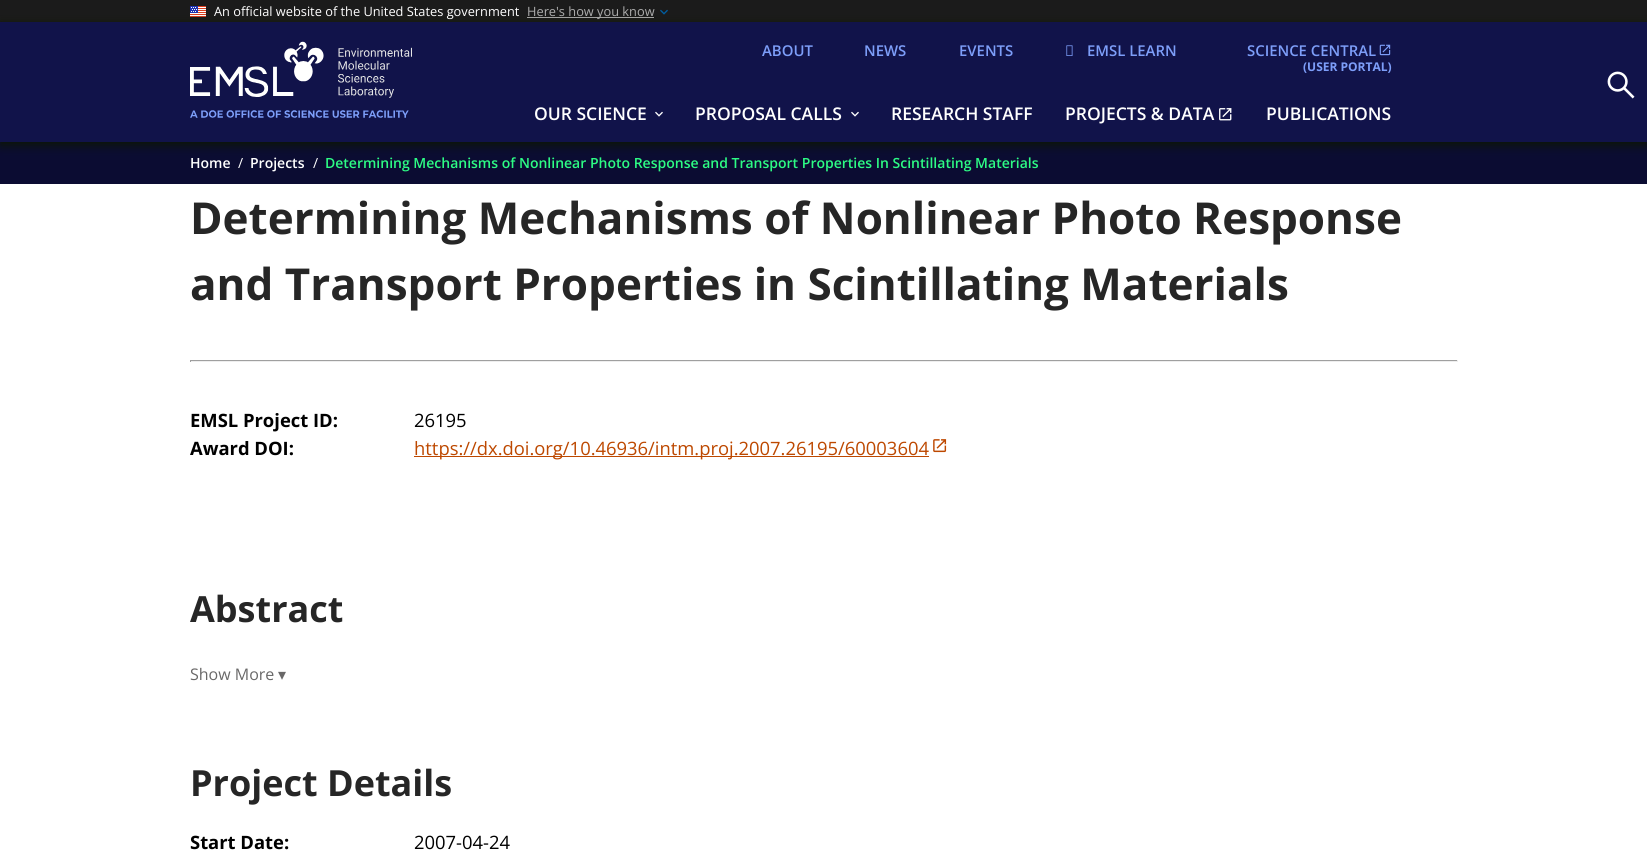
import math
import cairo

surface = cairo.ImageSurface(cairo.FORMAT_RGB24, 1647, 861)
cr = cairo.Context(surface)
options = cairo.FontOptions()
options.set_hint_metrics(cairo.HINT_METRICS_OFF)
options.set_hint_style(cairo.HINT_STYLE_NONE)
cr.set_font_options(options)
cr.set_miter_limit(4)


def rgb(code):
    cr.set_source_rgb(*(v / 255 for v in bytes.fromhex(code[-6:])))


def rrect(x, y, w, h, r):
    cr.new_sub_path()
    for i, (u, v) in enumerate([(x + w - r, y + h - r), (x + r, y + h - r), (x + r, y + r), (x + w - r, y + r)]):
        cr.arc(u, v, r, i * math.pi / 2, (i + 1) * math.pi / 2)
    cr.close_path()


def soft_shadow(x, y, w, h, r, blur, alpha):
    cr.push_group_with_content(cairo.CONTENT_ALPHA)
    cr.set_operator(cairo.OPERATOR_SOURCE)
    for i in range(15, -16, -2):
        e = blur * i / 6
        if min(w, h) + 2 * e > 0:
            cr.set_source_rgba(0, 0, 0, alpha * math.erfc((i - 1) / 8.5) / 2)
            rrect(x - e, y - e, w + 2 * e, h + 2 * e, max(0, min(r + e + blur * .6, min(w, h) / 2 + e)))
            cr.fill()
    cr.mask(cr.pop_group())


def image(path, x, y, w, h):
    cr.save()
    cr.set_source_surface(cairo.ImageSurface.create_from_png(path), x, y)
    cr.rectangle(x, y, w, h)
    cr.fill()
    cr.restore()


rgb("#ffffff")
cr.paint()
rgb("#1b1b1b")
cr.rectangle(0, 0, 1647, 22)
cr.fill()
image("img/1.png", 190, 6, 16, 11)
rgb("#adadad")
cr.rectangle(527, 17, 127, 1)
cr.fill()
image("img/2.png", 660, 9, 8, 6)
rgb("#0b0c32")
cr.rectangle(0, 142, 1647, 42)
cr.fill()
rgb("#0c1600")
soft_shadow(0, 25, 1647, 120, 0, 5, 1)
rgb("#11134a")
cr.rectangle(0, 22, 1647, 120)
cr.fill()
image("img/3.png", 190, 41, 222, 77)
image("img/4.png", 1066, 45, 7, 11)
image("img/5.png", 1379, 44, 12, 12)
image("img/6.png", 655, 111, 8, 6)
image("img/6.png", 851, 111, 8, 6)
image("img/7.png", 1219, 108, 13, 13)
image("img/8.png", 1607, 71, 28, 28)
for x, y, w, h, color in [
    (190, 360, 1268, 1, "#9f9f9f"),
    (1457, 360, 1, 2, "#eeeeee"),
    (190, 361, 1268, 1, "#eeeeee"),
    (190, 360, 1, 2, "#9f9f9f"),
    (414, 456, 515, 1, "#bd4800"),
]:
    rgb(color)
    cr.rectangle(x, y, w, h)
    cr.fill()
image("img/9.png", 933, 439, 14, 14)
cr.select_font_face("Open Sans")
cr.set_font_size(12.8)
rgb("#ffffff")
cr.move_to(214, 16)
cr.show_text("An official website of the United States government")
rgb("#adadad")
cr.move_to(527, 16)
cr.show_text("Here's how you know")
cr.select_font_face("Open Sans SemiBold")
cr.set_font_size(14.9)
rgb("#7d9ef9")
for x, y, s in [
    (762, 56, "ABOUT"),
    (864, 56, "NEWS"),
    (959, 56, "EVENTS"),
    (1087, 56, "EMSL LEARN"),
    (1247, 56, "SCIENCE CENTRAL"),
]:
    cr.move_to(x, y)
    cr.show_text(s)
cr.select_font_face("Open Sans", cairo.FONT_SLANT_NORMAL, cairo.FONT_WEIGHT_BOLD)
cr.set_font_size(12)
cr.move_to(1303, 71)
cr.show_text("(USER PORTAL)")
cr.select_font_face("Open Sans SemiBold")
cr.set_font_size(17.5)
rgb("#ffffff")
for x, y, s in [
    (534, 120, "OUR SCIENCE"),
    (695, 120, "PROPOSAL CALLS"),
    (891, 120, "RESEARCH STAFF"),
    (1065, 120, "PROJECTS & DATA"),
    (1266, 120, "PUBLICATIONS"),
]:
    cr.move_to(x, y)
    cr.show_text(s)
cr.set_font_size(14)
cr.move_to(190, 168)
cr.show_text("Home")
cr.select_font_face("Open Sans")
cr.move_to(238, 168)
cr.show_text("/")
cr.select_font_face("Open Sans SemiBold")
cr.move_to(250, 168)
cr.show_text("Projects")
cr.select_font_face("Open Sans")
cr.move_to(313, 168)
cr.show_text("/")
cr.select_font_face("Open Sans SemiBold")
rgb("#2dfc84")
cr.move_to(325, 168)
cr.show_text("Determining Mechanisms of Nonlinear Photo Response and Transport Properties In Scintillating Materials")
cr.select_font_face("Open Sans", cairo.FONT_SLANT_NORMAL, cairo.FONT_WEIGHT_BOLD)
cr.set_font_size(44)
rgb("#262626")
cr.move_to(190, 234)
cr.show_text("Determining Mechanisms of Nonlinear Photo Response")
cr.move_to(190, 300)
cr.show_text("and Transport Properties in Scintillating Materials")
cr.set_font_size(18.4)
rgb("#000000")
cr.move_to(190, 427)
cr.show_text("EMSL Project ID:")
cr.select_font_face("Open Sans")
cr.move_to(414, 427)
cr.show_text("26195")
cr.select_font_face("Open Sans", cairo.FONT_SLANT_NORMAL, cairo.FONT_WEIGHT_BOLD)
cr.move_to(190, 455)
cr.show_text("Award DOI:")
cr.select_font_face("Open Sans")
rgb("#bd4800")
cr.move_to(414, 455)
cr.show_text("https://dx.doi.org/10.46936/intm.proj.2007.26195/60003604")
cr.select_font_face("Open Sans", cairo.FONT_SLANT_NORMAL, cairo.FONT_WEIGHT_BOLD)
cr.set_font_size(36)
rgb("#262626")
cr.move_to(190, 622)
cr.show_text("Abstract")
cr.select_font_face("Open Sans")
cr.set_font_size(16)
rgb("#696868")
cr.move_to(190, 680)
cr.show_text("Show More")
cr.select_font_face("DejaVu Sans")
cr.move_to(278, 680)
cr.show_text("▾")
cr.select_font_face("Open Sans", cairo.FONT_SLANT_NORMAL, cairo.FONT_WEIGHT_BOLD)
cr.set_font_size(36)
rgb("#262626")
cr.move_to(190, 796)
cr.show_text("Project Details")
cr.set_font_size(18.4)
rgb("#000000")
cr.move_to(190, 849)
cr.show_text("Start Date:")
cr.select_font_face("Open Sans")
cr.move_to(414, 849)
cr.show_text("2007-04-24")
surface.write_to_png("page.png")
